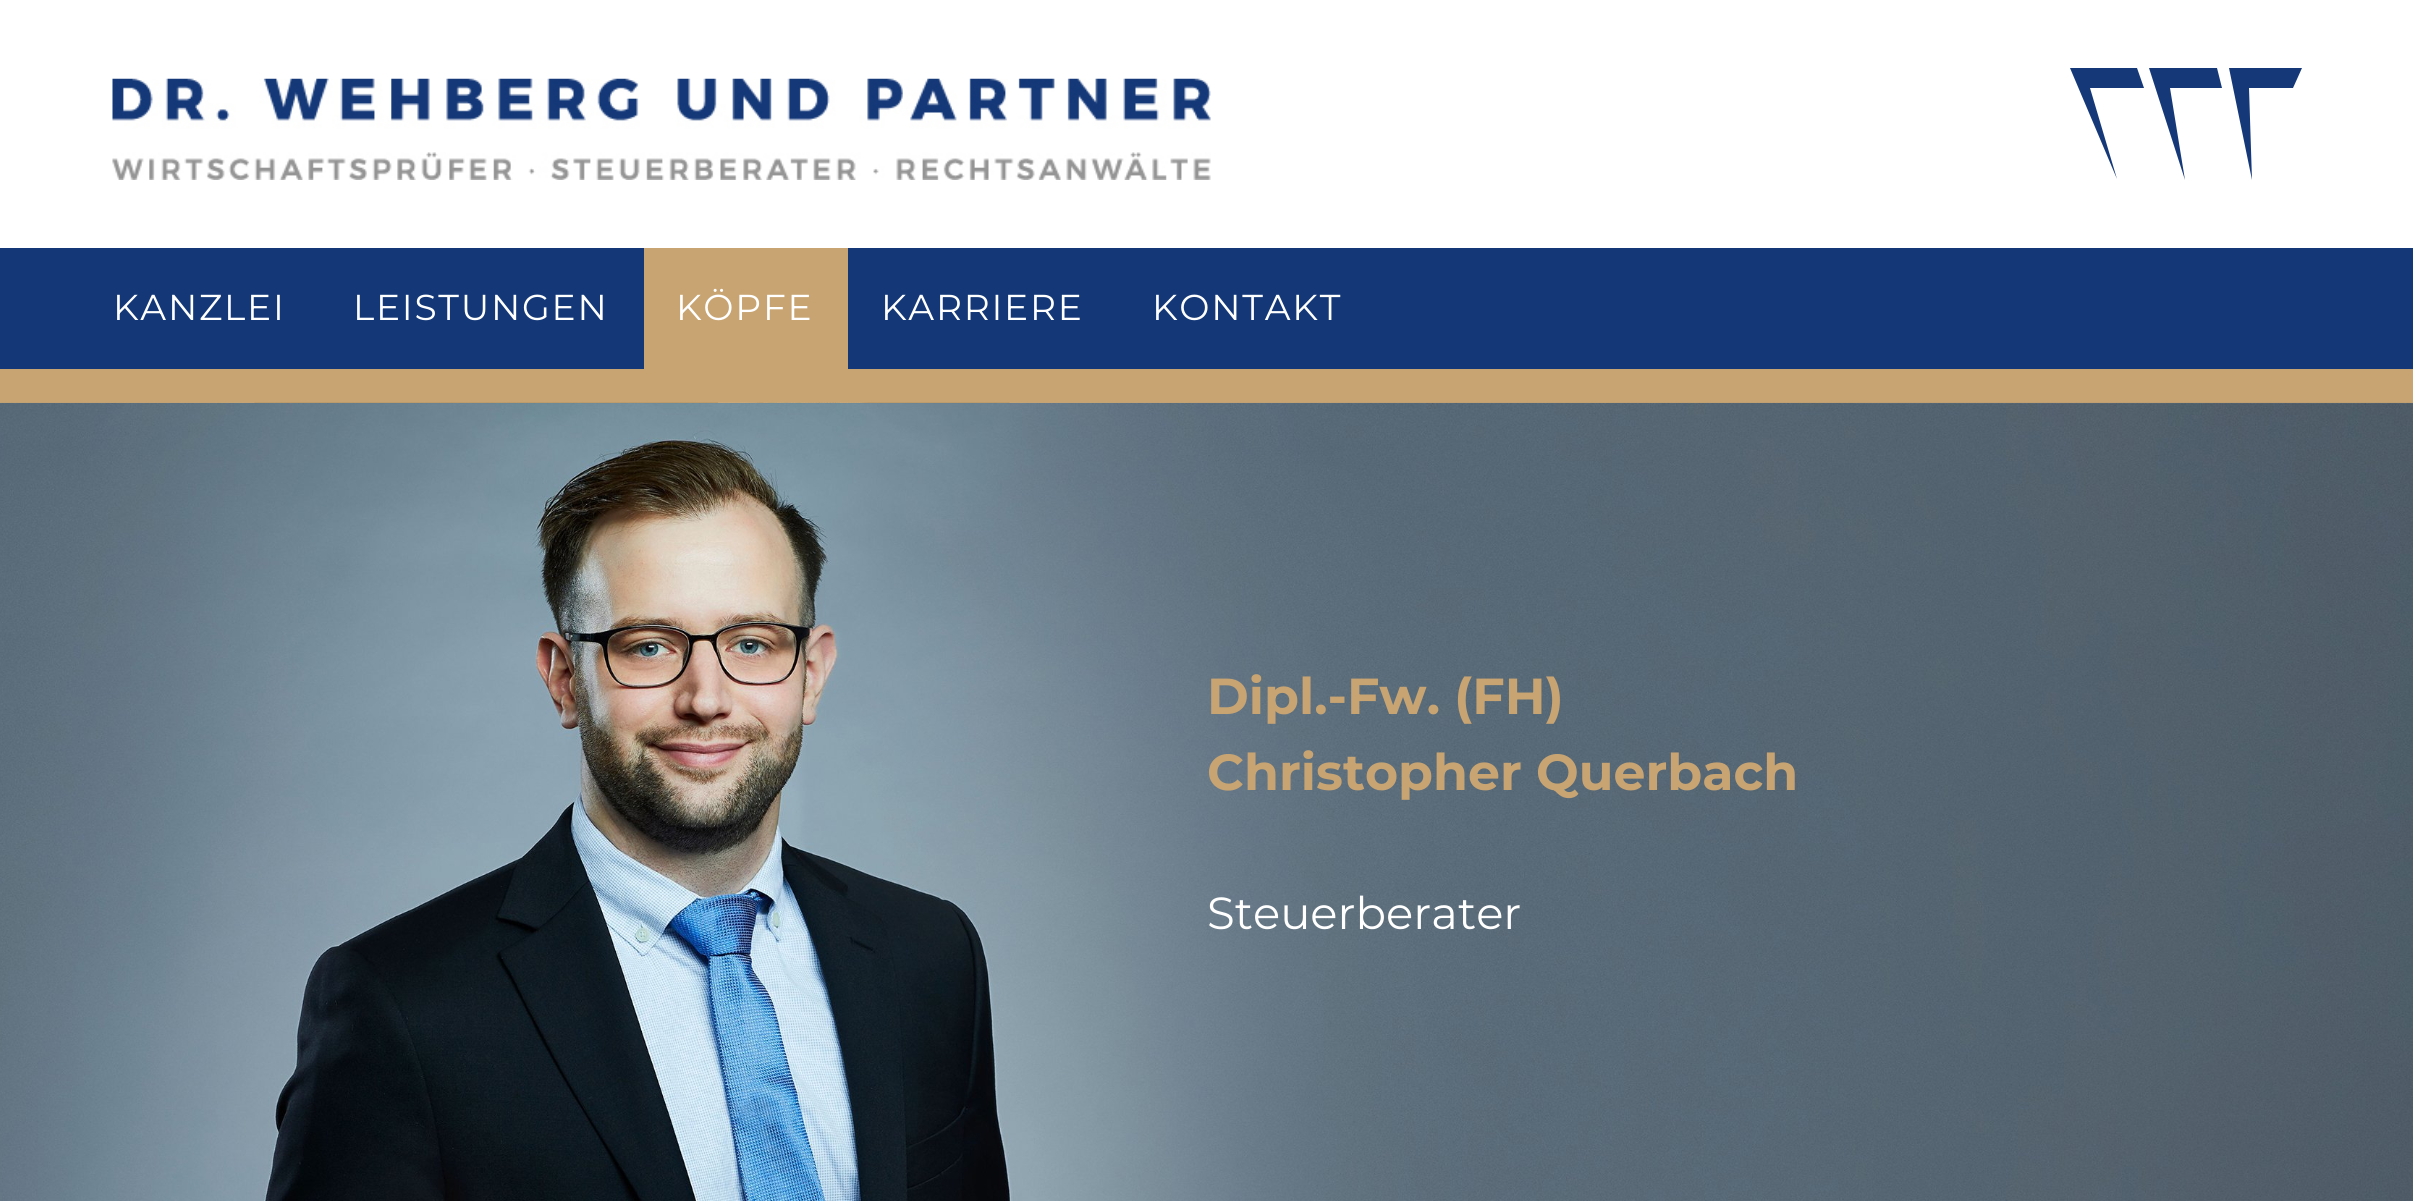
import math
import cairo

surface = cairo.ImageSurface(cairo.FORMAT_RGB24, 2413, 1201)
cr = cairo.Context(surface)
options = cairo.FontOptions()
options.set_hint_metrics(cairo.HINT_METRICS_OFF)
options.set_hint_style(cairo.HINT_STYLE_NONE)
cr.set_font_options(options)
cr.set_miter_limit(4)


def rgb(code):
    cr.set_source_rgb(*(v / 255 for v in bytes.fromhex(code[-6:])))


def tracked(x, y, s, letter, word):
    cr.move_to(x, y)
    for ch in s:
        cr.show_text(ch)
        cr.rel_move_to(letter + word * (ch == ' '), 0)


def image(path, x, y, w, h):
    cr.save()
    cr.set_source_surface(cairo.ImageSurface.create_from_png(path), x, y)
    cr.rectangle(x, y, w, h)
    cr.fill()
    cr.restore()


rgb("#ffffff")
cr.paint()
image("img/1.png", 112, 78, 1099, 102)
rgb("#153878")
cr.new_path()
cr.move_to(2070, 68)
cr.line_to(2117, 179)
cr.line_to(2090, 88)
cr.line_to(2144, 88)
cr.line_to(2137, 68)
cr.close_path()
cr.fill()
cr.new_path()
cr.move_to(2149, 68)
cr.line_to(2185, 180)
cr.line_to(2170, 88)
cr.line_to(2222, 88)
cr.line_to(2217, 68)
cr.close_path()
cr.fill()
cr.new_path()
cr.move_to(2229, 68)
cr.line_to(2252, 180)
cr.line_to(2249, 88)
cr.line_to(2293, 88)
cr.line_to(2302, 68)
cr.close_path()
cr.fill()
for x, y, w, h, color in [
    (0, 248, 2413, 121, "#143877"),
    (0, 369, 2413, 34, "#c8a472"),
    (644, 248, 204, 121, "#c8a472"),
]:
    rgb(color)
    cr.rectangle(x, y, w, h)
    cr.fill()
image("img/2.png", 0, 402, 2413, 799)
cr.select_font_face("Montserrat Thin")
cr.set_font_size(36)
rgb("#ffffff")
for x, y, s in [
    (113, 320, "KANZLEI"),
    (353, 320, "LEISTUNGEN"),
    (676, 320, "KÖPFE"),
    (881, 320, "KARRIERE"),
    (1152, 320, "KONTAKT"),
]:
    tracked(x, y, s, 1.75, 0)
cr.select_font_face("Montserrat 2 Thin")
cr.set_font_size(50.6)
rgb("#c8a472")
cr.move_to(1207, 714)
cr.show_text("Dipl.-Fw. (FH)")
cr.move_to(1207, 790)
cr.show_text("Christopher Querbach")
cr.select_font_face("Montserrat Thin")
cr.set_font_size(45)
rgb("#ffffff")
cr.move_to(1207, 929)
cr.show_text("Steuerberater")
surface.write_to_png("page.png")
